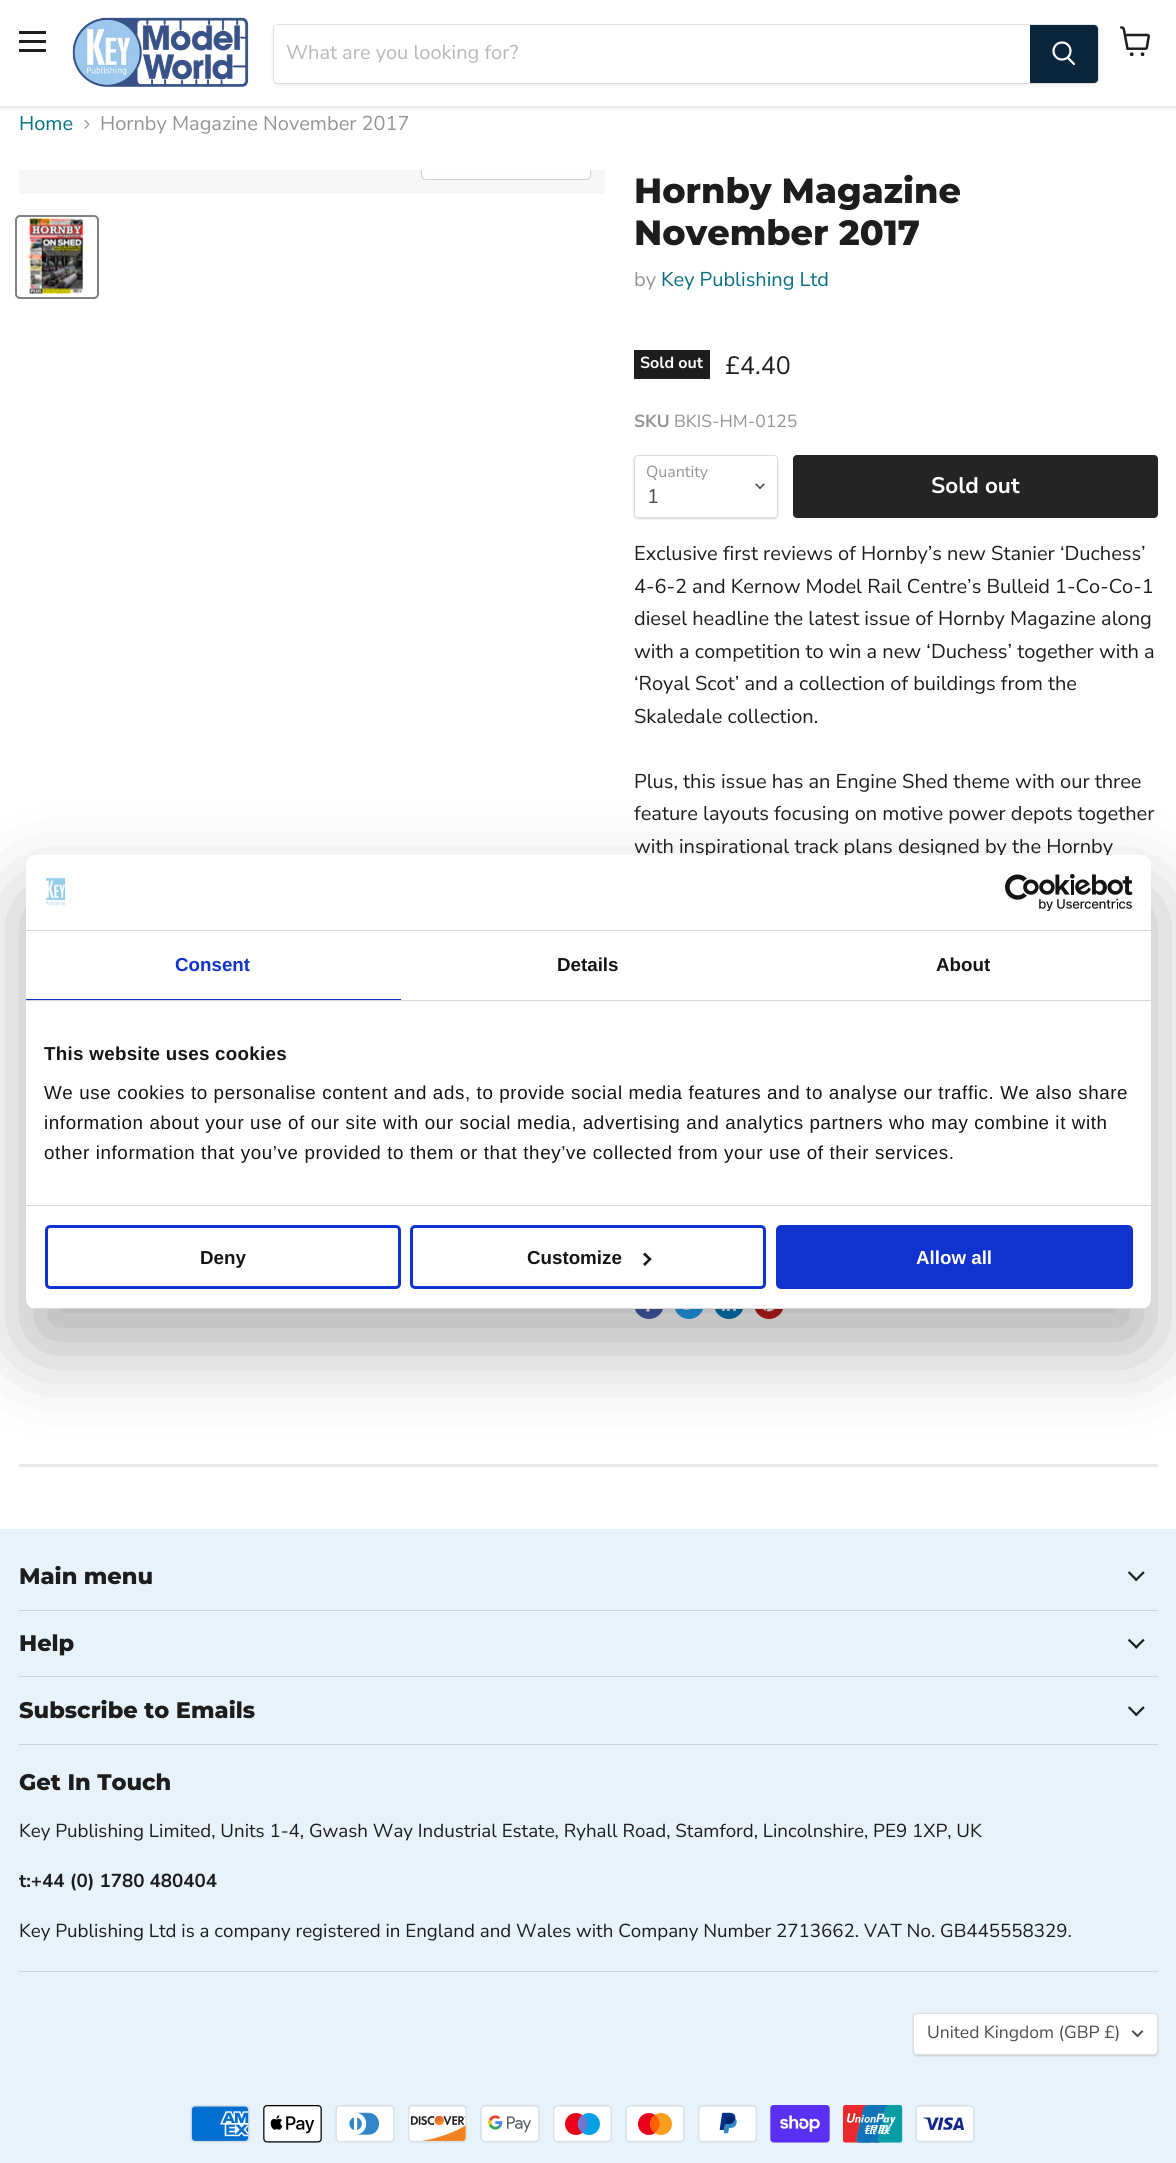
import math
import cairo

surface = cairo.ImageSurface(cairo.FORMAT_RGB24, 1176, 2163)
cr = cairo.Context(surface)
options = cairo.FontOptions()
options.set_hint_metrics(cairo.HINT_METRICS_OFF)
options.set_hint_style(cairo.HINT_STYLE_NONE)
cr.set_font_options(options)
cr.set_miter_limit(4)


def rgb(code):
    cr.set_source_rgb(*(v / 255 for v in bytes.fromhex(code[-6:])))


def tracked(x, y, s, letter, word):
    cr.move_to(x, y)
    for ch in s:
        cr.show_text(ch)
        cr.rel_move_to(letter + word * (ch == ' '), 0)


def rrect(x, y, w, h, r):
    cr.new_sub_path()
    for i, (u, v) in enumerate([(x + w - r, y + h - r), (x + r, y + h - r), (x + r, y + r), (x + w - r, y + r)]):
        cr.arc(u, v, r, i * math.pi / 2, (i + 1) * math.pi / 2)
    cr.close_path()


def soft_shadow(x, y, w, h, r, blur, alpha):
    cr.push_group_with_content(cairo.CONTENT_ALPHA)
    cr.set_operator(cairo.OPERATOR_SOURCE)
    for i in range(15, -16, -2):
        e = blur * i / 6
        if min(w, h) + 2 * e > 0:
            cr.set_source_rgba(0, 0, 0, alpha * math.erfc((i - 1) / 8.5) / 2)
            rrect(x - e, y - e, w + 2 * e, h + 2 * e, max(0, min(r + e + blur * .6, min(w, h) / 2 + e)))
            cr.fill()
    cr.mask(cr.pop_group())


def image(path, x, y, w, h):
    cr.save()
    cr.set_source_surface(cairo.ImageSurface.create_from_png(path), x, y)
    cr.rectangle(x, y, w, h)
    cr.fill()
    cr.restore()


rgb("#ffffff")
cr.paint()
cr.save()
cr.rectangle(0, 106, 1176, 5)
cr.clip()
rgb("#808080")
soft_shadow(0, 1, 1176, 107, 0, 2.5, 0.25)
cr.restore()
for x, y, w, h, color in [
    (19, 31, 27, 3, "#1d1d1d"),
    (19, 40, 27, 3, "#1d1d1d"),
    (19, 49, 27, 3, "#1d1d1d"),
]:
    rgb(color)
    cr.rectangle(x, y, w, h)
    cr.fill()
image("img/1.png", 72, 17, 177, 70)
rgb("#808080")
soft_shadow(273, 26, 826, 60, 5, 2, 0.11)
rrect(273.5, 24.5, 825, 59, 4.5)
cr.set_source_rgba(0.502, 0.502, 0.502, 0.2)
cr.set_line_width(1)
cr.stroke()
rgb("#ffffff")
cr.new_path()
cr.move_to(278, 25)
cr.line_to(1030, 25)
cr.line_to(1030, 83)
cr.line_to(278, 83)
cr.curve_to(276, 83, 274, 81, 274, 79)
cr.line_to(274, 29)
cr.curve_to(274, 27, 276, 25, 278, 25)
cr.close_path()
cr.fill()
rgb("#0b253d")
cr.new_path()
cr.move_to(1030.5, 25.5)
cr.line_to(1094, 25.5)
cr.curve_to(1096, 25.5, 1097.5, 27, 1097.5, 29)
cr.line_to(1097.5, 79)
cr.curve_to(1097.5, 81, 1096, 82.5, 1094, 82.5)
cr.line_to(1030.5, 82.5)
cr.close_path()
cr.fill_preserve()
cr.stroke()
cr.new_path()
cr.move_to(1074, 64)
cr.line_to(1068, 58)
rgb("#ffffff")
cr.set_line_width(2.2)
cr.set_line_cap(cairo.LINE_CAP_ROUND)
cr.stroke()
cr.arc(1062, 51, 8.5, 0, 2 * math.pi)
cr.set_line_cap(cairo.LINE_CAP_BUTT)
cr.stroke()
image("img/2.png", 1120, 26, 30, 30)
image("img/3.png", 84, 119, 6, 10)
rgb("#f6f6f6")
cr.rectangle(19, 170, 586, 24)
cr.fill()
cr.save()
cr.rectangle(19, 170, 586, 24)
cr.clip()
rrect(421.5, 143.5, 169, 36, 4.5)
rgb("#d1d1d1")
cr.set_line_width(1)
cr.stroke()
cr.restore()
cr.set_source_rgba(1, 1, 1, 0.9)
cr.new_path()
cr.move_to(423, 170)
cr.line_to(590, 170)
cr.line_to(590, 175)
cr.curve_to(590, 177, 588, 179, 586, 179)
cr.line_to(427, 179)
cr.curve_to(425, 179, 423, 177, 423, 175)
cr.close_path()
cr.fill()
rrect(16, 216, 82, 82, 4)
rgb("#818181")
cr.set_line_width(2)
cr.stroke()
image("img/4.png", 27, 218, 57, 76)
rgb("#1d1d1d")
cr.rectangle(634, 350, 76, 29)
cr.fill()
rgb("#000000")
soft_shadow(634, 456, 144, 63, 4, 1, 0.15)
rgb("#ffffff")
rrect(634.5, 455.5, 143, 62, 3.5)
cr.fill_preserve()
rgb("#dddddd")
cr.set_line_width(1)
cr.stroke()
image("img/5.png", 755, 483, 10, 7)
rgb("#242424")
rrect(793.5, 455.5, 364, 62, 3.5)
cr.fill_preserve()
cr.stroke()
rgb("#425dab")
cr.arc(649, 1304, 15, 0, 2 * math.pi)
cr.fill()
image("img/6.png", 646, 1309, 4, 3)
rgb("#1da1f2")
cr.arc(689, 1304, 15, 0, 2 * math.pi)
cr.fill()
image("img/7.png", 683, 1309, 7, 1)
rgb("#0077b5")
cr.arc(729, 1304, 15, 0, 2 * math.pi)
cr.fill()
image("img/8.png", 722, 1309, 14, 2)
rgb("#bd1c1c")
cr.arc(769, 1304, 15, 0, 2 * math.pi)
cr.fill()
image("img/9.png", 763, 1309, 12, 3)
cr.set_source_rgba(0.502, 0.502, 0.502, 0.16)
cr.rectangle(19, 1464, 1139, 3)
cr.fill()
rgb("#000000")
soft_shadow(26, 895, 1125, 454, 10, 42.5, 0.3)
rgb("#e8f2fb")
cr.rectangle(0, 1529, 1176, 634)
cr.fill()
rgb("#cad2da")
cr.rectangle(19, 1610, 1139, 1)
cr.fill()
image("img/12.png", 1128, 1571, 17, 10)
cr.rectangle(19, 1676, 1139, 1)
cr.fill()
image("img/13.png", 1128, 1639, 17, 10)
cr.rectangle(19, 1744, 1139, 1)
cr.fill()
image("img/12.png", 1128, 1706, 17, 10)
cr.rectangle(19, 1971, 1139, 1)
cr.fill()
rgb("#000000")
soft_shadow(913, 2014, 245, 42, 4, 1, 0.15)
rgb("#ffffff")
rrect(913.5, 2013.5, 244, 41, 3.5)
cr.fill_preserve()
rgb("#dddddd")
cr.stroke()
cr.new_path()
cr.move_to(1137.5, 2036)
cr.line_to(1142, 2031.5)
cr.move_to(1137.5, 2036)
cr.line_to(1133, 2031.5)
rgb("#4d4d4d")
cr.set_line_width(2)
cr.set_line_cap(cairo.LINE_CAP_SQUARE)
cr.stroke()
image("img/14.png", 190, 2105, 60, 38)
image("img/15.png", 263, 2105, 59, 38)
image("img/16.png", 335, 2105, 60, 38)
image("img/17.png", 408, 2105, 59, 38)
image("img/18.png", 480, 2105, 60, 38)
image("img/19.png", 553, 2105, 59, 38)
image("img/20.png", 625, 2105, 60, 38)
image("img/21.png", 698, 2105, 59, 38)
image("img/22.png", 770, 2105, 60, 38)
image("img/23.png", 843, 2105, 60, 38)
image("img/24.png", 915, 2105, 60, 38)
cr.select_font_face("Nunito Sans")
cr.set_font_size(20)
rgb("#b8b8b8")
cr.move_to(286, 59)
cr.show_text("What are you looking for?")
rgb("#046e82")
cr.move_to(19, 130)
cr.show_text("Home")
rgb("#949494")
cr.move_to(100, 130)
cr.show_text("Hornby Magazine November 2017")
cr.select_font_face("Montserrat ExtraBold")
cr.set_font_size(35)
rgb("#1d1d1d")
cr.move_to(634, 203)
cr.show_text("Hornby Magazine")
cr.move_to(634, 245)
cr.show_text("November 2017")
cr.select_font_face("Nunito Sans")
cr.set_font_size(20)
rgb("#949494")
cr.move_to(634, 286)
cr.show_text("by")
rgb("#046e82")
cr.move_to(661, 286)
cr.show_text("Key Publishing Ltd")
cr.select_font_face("Nunito Sans", cairo.FONT_SLANT_NORMAL, cairo.FONT_WEIGHT_BOLD)
cr.set_font_size(16)
rgb("#ffffff")
cr.move_to(640, 368)
cr.show_text("Sold out")
cr.select_font_face("Nunito Sans")
cr.set_font_size(25)
rgb("#1d1d1d")
cr.move_to(725, 374)
cr.show_text("£4.40")
cr.select_font_face("Nunito Sans", cairo.FONT_SLANT_NORMAL, cairo.FONT_WEIGHT_BOLD)
cr.set_font_size(17.5)
rgb("#949494")
cr.move_to(634, 427)
cr.show_text("SKU")
cr.select_font_face("Nunito Sans")
cr.move_to(674, 427)
cr.show_text("BKIS-HM-0125")
cr.set_font_size(16)
cr.move_to(646, 477)
cr.show_text("Quantity")
cr.set_font_size(20)
rgb("#4d4d4d")
cr.move_to(647, 503)
cr.show_text("1")
cr.select_font_face("Nunito Sans", cairo.FONT_SLANT_NORMAL, cairo.FONT_WEIGHT_BOLD)
cr.set_font_size(22.5)
rgb("#ffffff")
cr.move_to(931, 493)
cr.show_text("Sold out")
cr.select_font_face("Nunito Sans")
cr.set_font_size(20)
rgb("#1d1d1d")
for x, y, s in [
    (634, 560, "Exclusive first reviews of Hornby’s new Stanier ‘Duchess’"),
    (634, 593, "4-6-2 and Kernow Model Rail Centre’s Bulleid 1-Co-Co-1"),
    (634, 625, "diesel headline the latest issue of Hornby Magazine along"),
    (634, 658, "with a competition to win a new ‘Duchess’ together with a"),
    (634, 690, "‘Royal Scot’ and a collection of buildings from the"),
    (634, 723, "Skaledale collection."),
    (634, 788, "Plus, this issue has an Engine Shed theme with our three"),
    (634, 820, "feature layouts focusing on motive power depots together"),
    (634, 853, "with inspirational track plans designed by the Hornby"),
]:
    cr.move_to(x, y)
    cr.show_text(s)
rgb("#ffffff")
rrect(26, 855, 1125, 454, 10)
cr.fill()
rgb("#d6d6d6")
cr.rectangle(26, 930, 1125, 1)
cr.fill()
image("img/10.png", 46, 877, 20, 30)
image("img/11.png", 1005, 874, 128, 37)
cr.rectangle(26, 1000, 1125, 1)
cr.fill()
rgb("#1032cf")
cr.rectangle(26, 999, 375, 1)
cr.fill()
cr.select_font_face("Liberation Sans", cairo.FONT_SLANT_NORMAL, cairo.FONT_WEIGHT_BOLD)
cr.set_font_size(18.75)
cr.move_to(175, 971)
cr.show_text("Consent")
rgb("#141414")
cr.move_to(557, 971)
cr.show_text("Details")
cr.move_to(936, 971)
cr.show_text("About")
rgb("#d6d6d6")
cr.rectangle(26, 1205, 1125, 1)
cr.fill()
rgb("#141414")
tracked(44, 1060, "This website uses cookies", 0.3, 0)
cr.select_font_face("Liberation Sans")
for x, y, s in [
    (44, 1099, "We use cookies to personalise content and ads, to provide social media features and to analyse our traffic. We also share"),
    (44, 1129, "information about your use of our site with our social media, advertising and analytics partners who may combine it with"),
    (44, 1159, "other information that you’ve provided to them or that they’ve collected from your use of their services."),
]:
    tracked(x, y, s, 0.62, 0)
cr.save()
rrect(26, 855, 1125, 454, 10)
cr.clip()
rgb("#d6d6d6")
cr.rectangle(26, 1308, 1125, 1)
cr.fill()
cr.restore()
rrect(46.5, 1226.5, 353, 61, 3.5)
rgb("#1032cf")
cr.set_line_width(3)
cr.set_line_cap(cairo.LINE_CAP_BUTT)
cr.stroke()
cr.select_font_face("Liberation Sans", cairo.FONT_SLANT_NORMAL, cairo.FONT_WEIGHT_BOLD)
rgb("#141414")
cr.move_to(200, 1264)
cr.show_text("Deny")
rrect(411.5, 1226.5, 353, 61, 3.5)
rgb("#1032cf")
cr.stroke()
rgb("#141414")
cr.move_to(527, 1264)
cr.show_text("Customize")
cr.new_path()
cr.move_to(645, 1252.5)
cr.line_to(651.5, 1259)
cr.line_to(650, 1261)
cr.line_to(643, 1254.5)
cr.close_path()
cr.fill()
cr.new_path()
cr.move_to(650, 1257.5)
cr.line_to(651.5, 1259)
cr.line_to(645, 1266)
cr.line_to(643, 1264)
cr.close_path()
cr.fill()
rgb("#1032cf")
rrect(777.5, 1226.5, 354, 61, 3.5)
cr.fill_preserve()
cr.stroke()
rgb("#ffffff")
cr.move_to(916, 1264)
cr.show_text("Allow all")
cr.select_font_face("Montserrat ExtraBold")
cr.set_font_size(22.5)
rgb("#1d1d1d")
for x, y, s in [
    (19, 1584, "Main menu"),
    (19, 1651, "Help"),
    (19, 1718, "Subscribe to Emails"),
    (19, 1790, "Get In Touch"),
]:
    cr.move_to(x, y)
    cr.show_text(s)
cr.select_font_face("Nunito Sans")
cr.set_font_size(18.75)
cr.move_to(19, 1837)
cr.show_text("Key Publishing Limited, Units 1-4, Gwash Way Industrial Estate, Ryhall Road, Stamford, Lincolnshire, PE9 1XP, UK")
cr.select_font_face("Nunito Sans", cairo.FONT_SLANT_NORMAL, cairo.FONT_WEIGHT_BOLD)
cr.move_to(19, 1887)
cr.show_text("t:+44 (0) 1780 480404")
cr.select_font_face("Nunito Sans")
cr.move_to(19, 1937)
cr.show_text("Key Publishing Ltd is a company registered in England and Wales with Company Number 2713662. VAT No. GB445558329.")
cr.set_font_size(17.5)
rgb("#4d4d4d")
cr.move_to(927, 2038)
cr.show_text("United Kingdom (GBP £)")
surface.write_to_png("page.png")
